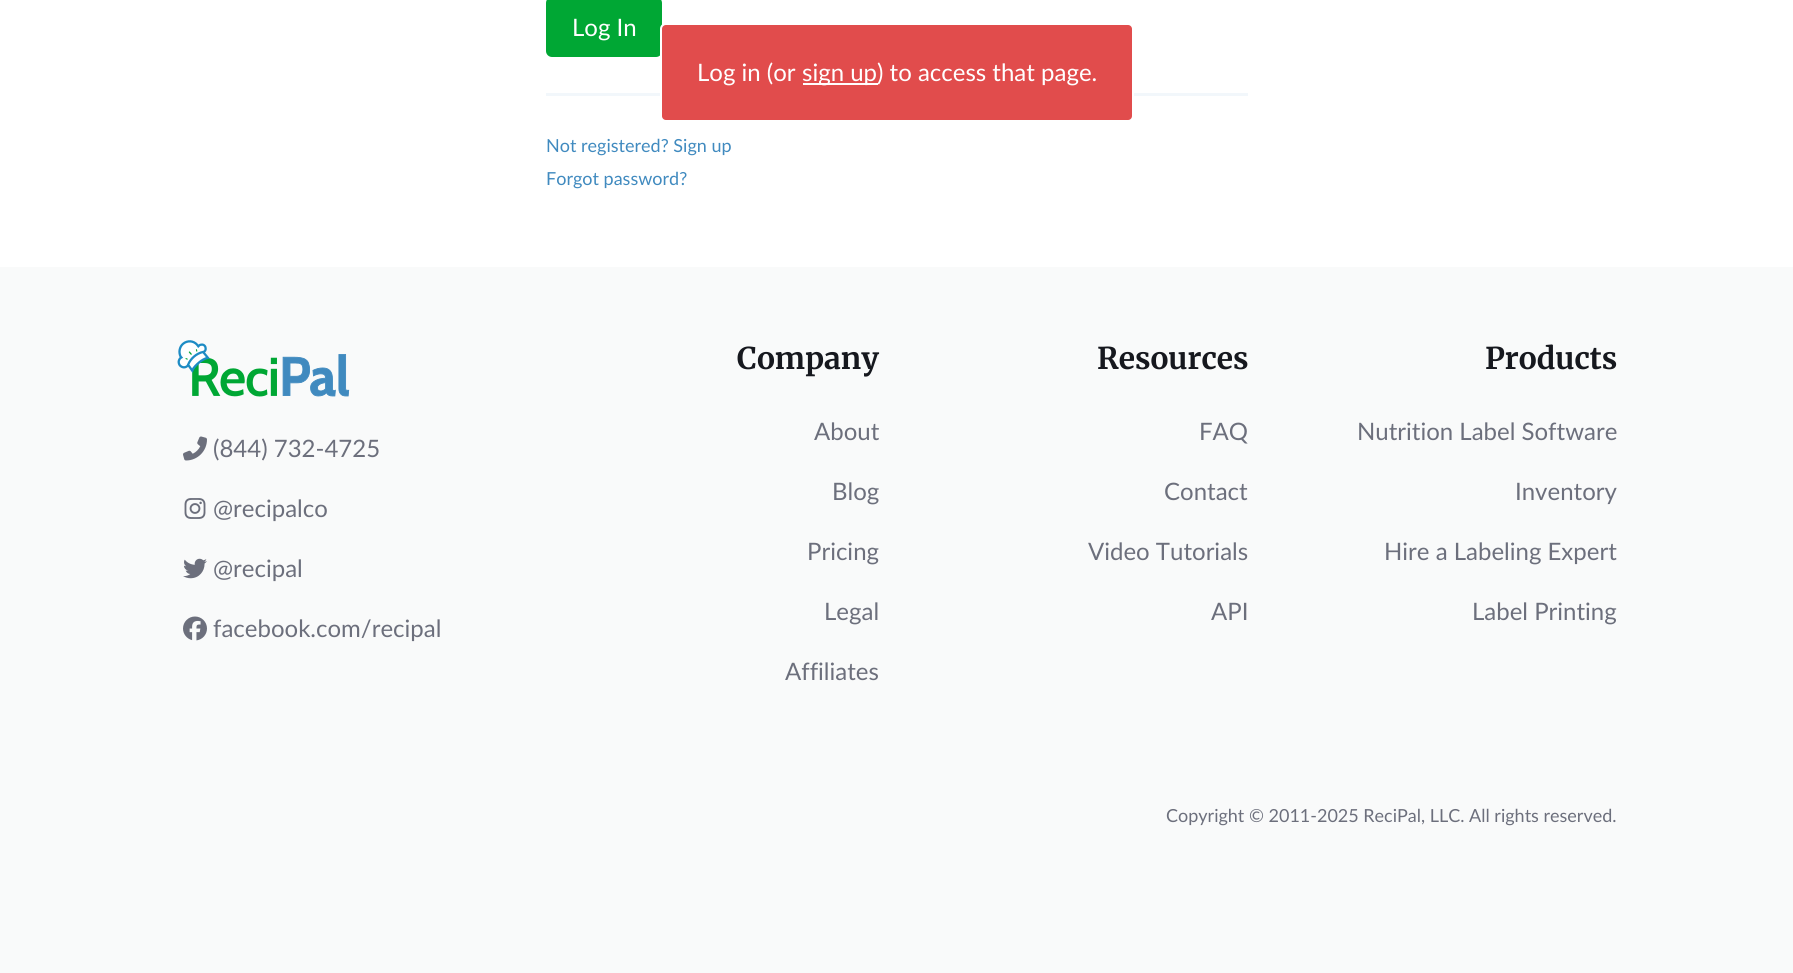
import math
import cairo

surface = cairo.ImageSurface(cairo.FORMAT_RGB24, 1793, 973)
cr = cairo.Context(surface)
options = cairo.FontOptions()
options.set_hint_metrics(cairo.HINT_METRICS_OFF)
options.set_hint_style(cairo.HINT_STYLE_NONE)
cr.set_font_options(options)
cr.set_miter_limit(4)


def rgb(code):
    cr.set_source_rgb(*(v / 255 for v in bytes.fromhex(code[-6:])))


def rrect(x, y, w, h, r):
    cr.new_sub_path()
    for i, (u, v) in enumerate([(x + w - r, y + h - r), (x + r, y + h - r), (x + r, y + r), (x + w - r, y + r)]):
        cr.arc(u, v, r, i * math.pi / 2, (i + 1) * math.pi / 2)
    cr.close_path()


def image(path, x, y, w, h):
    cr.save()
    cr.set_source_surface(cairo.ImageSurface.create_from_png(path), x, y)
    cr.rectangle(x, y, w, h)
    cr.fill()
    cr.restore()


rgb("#ffffff")
cr.paint()
rgb("#00a734")
rrect(546, -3, 116, 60, 6)
cr.fill()
rgb("#f2f7fb")
cr.rectangle(546, 93, 702, 3)
cr.fill()
rgb("#e14c4c")
rrect(661, 24, 472, 97, 5)
cr.fill_preserve()
rgb("#ffffff")
cr.stroke()
cr.rectangle(803, 83, 75, 2)
cr.fill()
rgb("#f9fafa")
cr.rectangle(0, 267, 1793, 706)
cr.fill()
image("img/1.png", 177, 340, 173, 57)
image("img/2.png", 183, 436, 24, 25)
image("img/3.png", 184, 498, 22, 21)
image("img/4.png", 183, 558, 24, 21)
image("img/5.png", 183, 616, 24, 25)
cr.select_font_face("Lato")
cr.set_font_size(24)
rgb("#ffffff")
cr.move_to(572, 36)
cr.show_text("Log In")
cr.set_font_size(18)
rgb("#408abf")
cr.move_to(546, 152)
cr.show_text("Not registered? Sign up")
cr.move_to(546, 185)
cr.show_text("Forgot password?")
cr.set_font_size(24)
rgb("#ffffff")
cr.move_to(697, 81)
cr.show_text("Log in (or")
cr.move_to(802, 81)
cr.show_text("sign up) to access that page.")
rgb("#6c6f7c")
for x, y, s in [
    (213, 457, "(844) 732-4725"),
    (213, 517, "@recipalco"),
    (213, 577, "@recipal"),
    (213, 637, "facebook.com/recipal"),
]:
    cr.move_to(x, y)
    cr.show_text(s)
cr.select_font_face("Merriweather", cairo.FONT_SLANT_NORMAL, cairo.FONT_WEIGHT_BOLD)
cr.set_font_size(30)
rgb("#16181e")
cr.move_to(737, 369)
cr.show_text("Company")
cr.select_font_face("Lato")
cr.set_font_size(24)
rgb("#6c6f7c")
for x, y, s in [
    (814, 440, "About"),
    (832, 500, "Blog"),
    (807, 560, "Pricing"),
    (824, 620, "Legal"),
    (785, 680, "Affiliates"),
]:
    cr.move_to(x, y)
    cr.show_text(s)
cr.select_font_face("Merriweather", cairo.FONT_SLANT_NORMAL, cairo.FONT_WEIGHT_BOLD)
cr.set_font_size(30)
rgb("#16181e")
cr.move_to(1097, 369)
cr.show_text("Resources")
cr.select_font_face("Lato")
cr.set_font_size(24)
rgb("#6c6f7c")
for x, y, s in [
    (1199, 440, "FAQ"),
    (1164, 500, "Contact"),
    (1088, 560, "Video Tutorials"),
    (1211, 620, "API"),
]:
    cr.move_to(x, y)
    cr.show_text(s)
cr.select_font_face("Merriweather", cairo.FONT_SLANT_NORMAL, cairo.FONT_WEIGHT_BOLD)
cr.set_font_size(30)
rgb("#16181e")
cr.move_to(1485, 369)
cr.show_text("Products")
cr.select_font_face("Lato")
cr.set_font_size(24)
rgb("#6c6f7c")
for x, y, s in [
    (1357, 440, "Nutrition Label Software"),
    (1515, 500, "Inventory"),
    (1384, 560, "Hire a Labeling Expert"),
    (1472, 620, "Label Printing"),
]:
    cr.move_to(x, y)
    cr.show_text(s)
cr.set_font_size(18)
cr.move_to(1166, 822)
cr.show_text("Copyright © 2011-2025 ReciPal, LLC. All rights reserved.")
surface.write_to_png("page.png")
